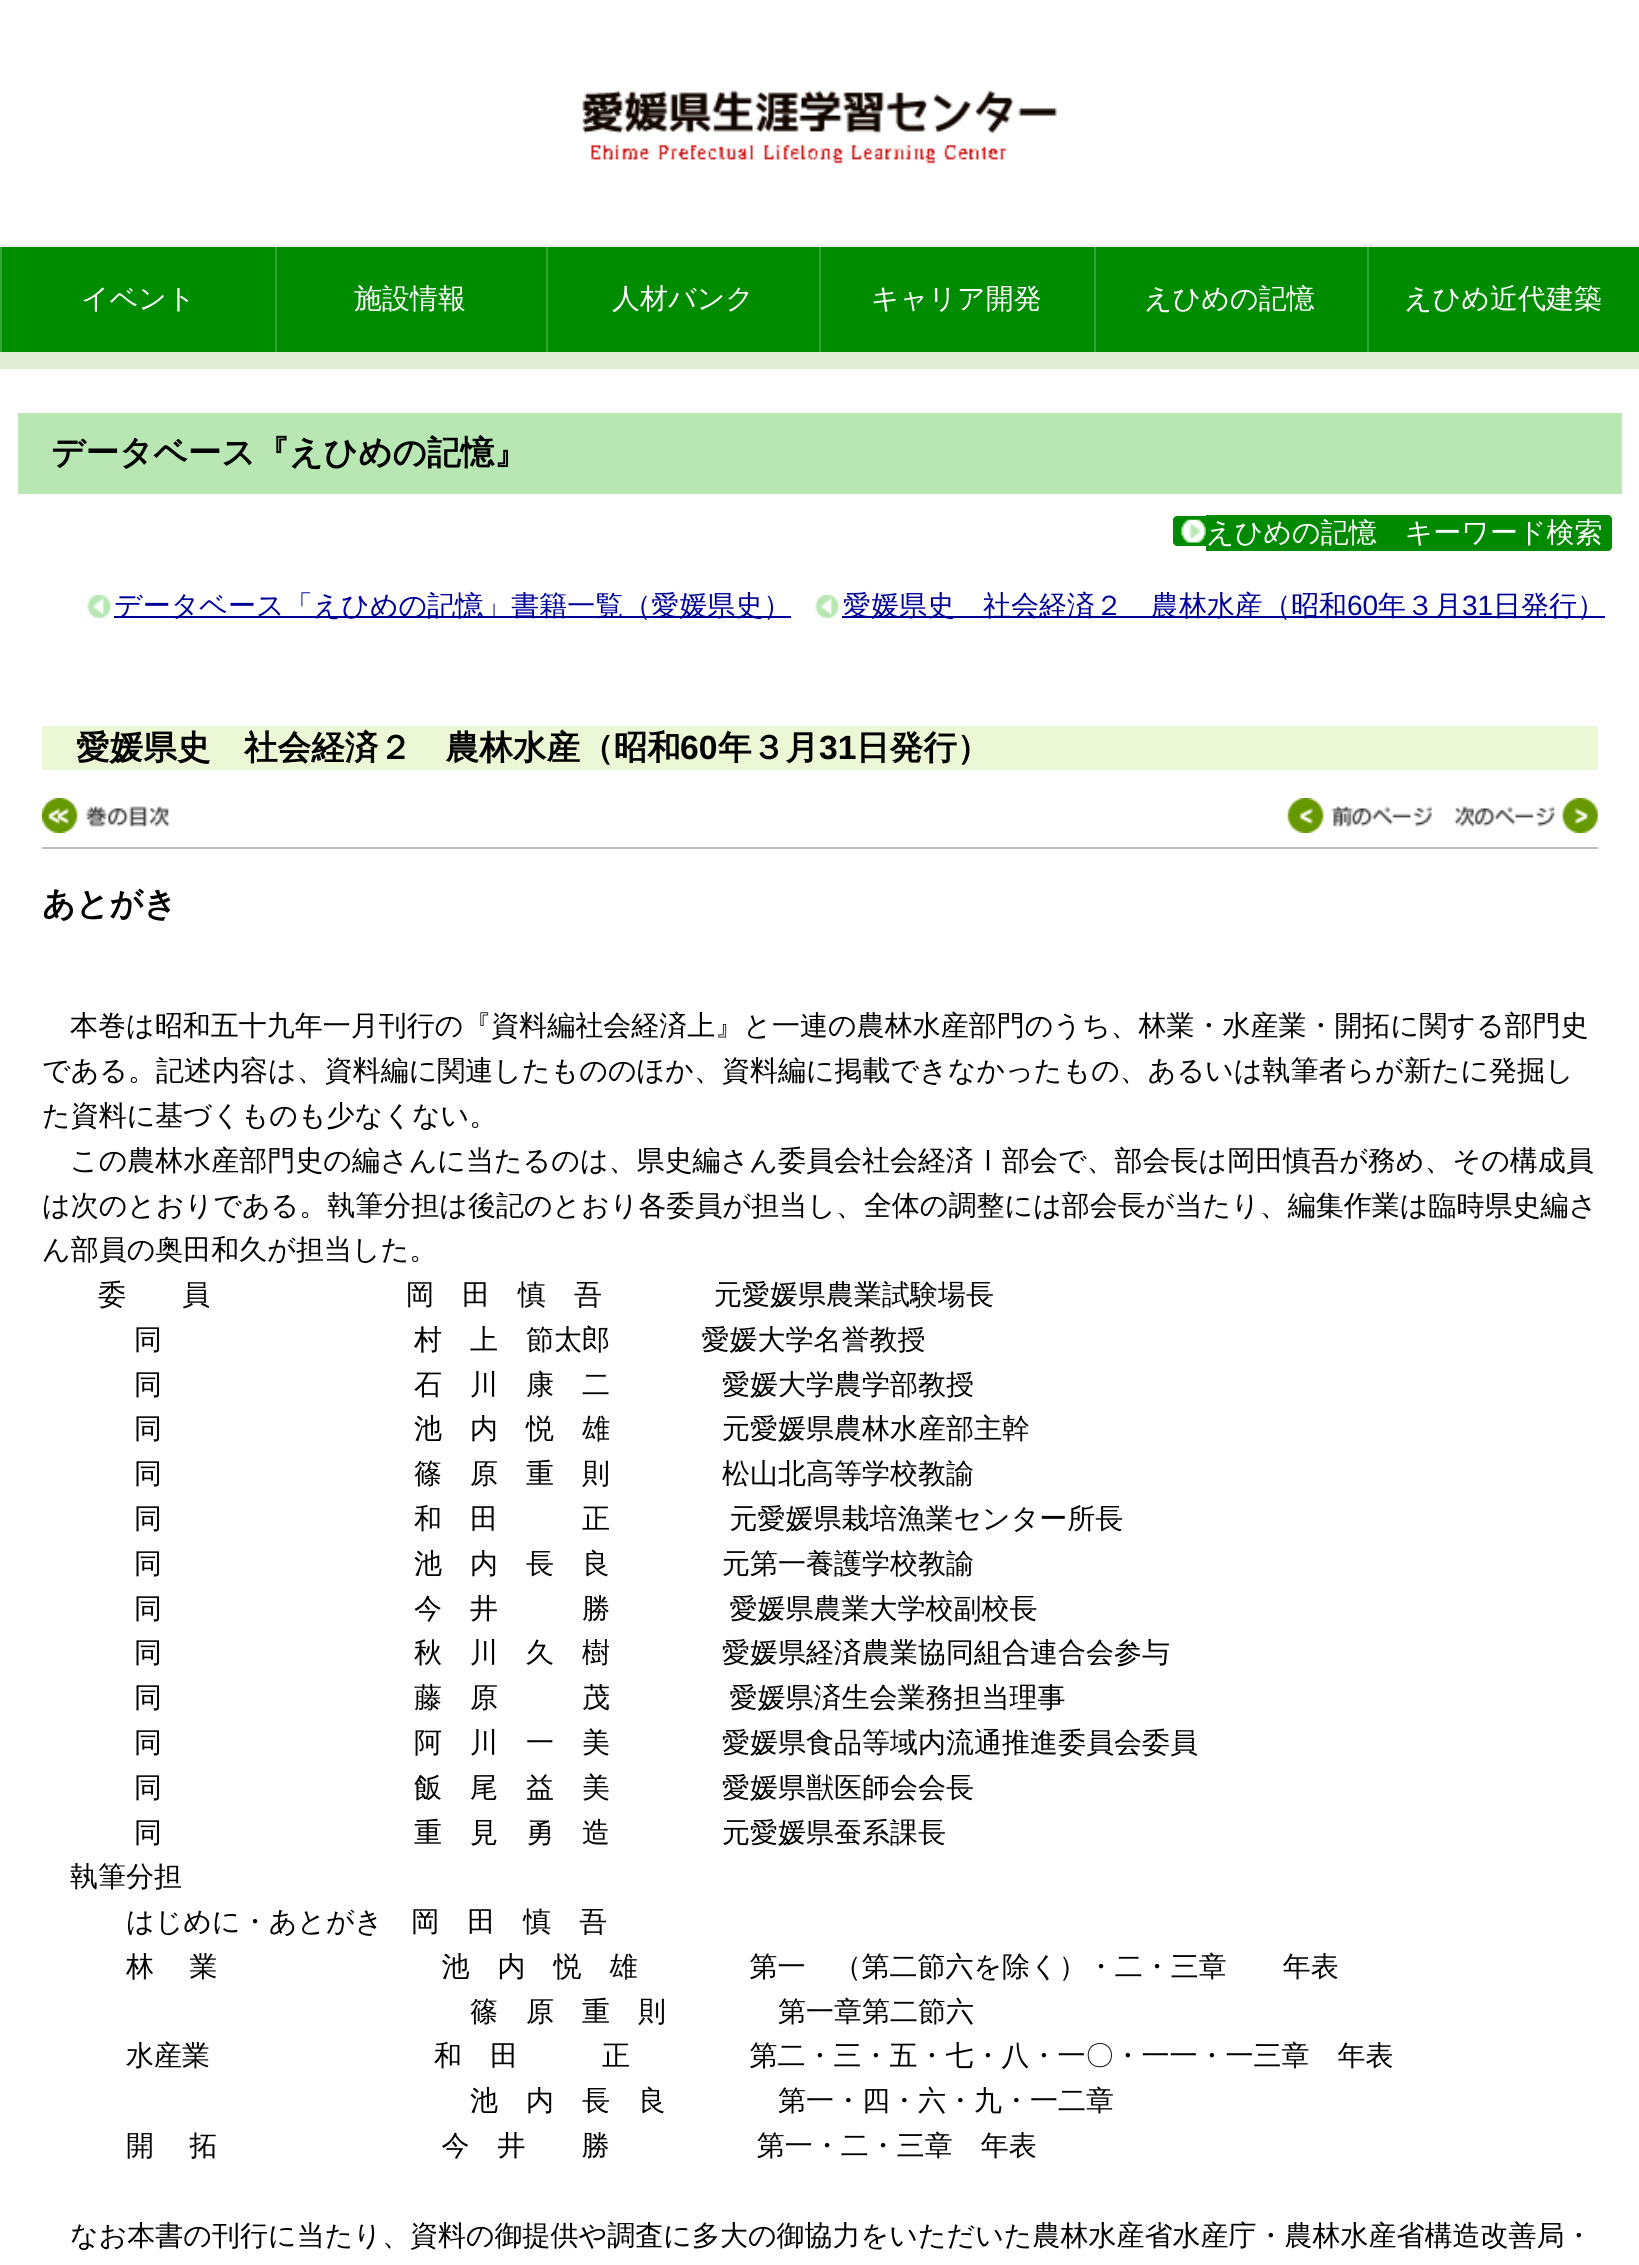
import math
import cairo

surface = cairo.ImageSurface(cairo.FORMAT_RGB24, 1639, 2265)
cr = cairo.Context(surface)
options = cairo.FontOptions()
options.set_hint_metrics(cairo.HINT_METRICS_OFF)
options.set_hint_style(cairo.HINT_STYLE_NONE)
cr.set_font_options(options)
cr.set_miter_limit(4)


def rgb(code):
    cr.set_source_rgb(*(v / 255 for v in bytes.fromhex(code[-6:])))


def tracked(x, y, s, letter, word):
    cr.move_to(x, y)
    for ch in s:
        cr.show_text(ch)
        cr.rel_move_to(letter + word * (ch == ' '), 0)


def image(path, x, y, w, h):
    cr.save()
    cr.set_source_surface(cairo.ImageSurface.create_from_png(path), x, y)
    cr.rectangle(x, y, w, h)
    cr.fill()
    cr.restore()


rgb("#ffffff")
cr.paint()
image("img/1.png", 582, 90, 475, 74)
for x, y, w, h, color in [
    (2, 247, 1637, 105, "#008c00"),
    (0, 245, 1639, 2, "#eeeeee"),
    (0, 352, 1639, 17, "#e1edd5"),
    (275, 247, 2, 105, "#33a333"),
    (0, 247, 2, 105, "#33a333"),
    (546, 247, 2, 105, "#33a333"),
    (819, 247, 2, 105, "#33a333"),
    (1094, 247, 2, 105, "#33a333"),
    (1367, 247, 2, 105, "#33a333"),
    (18, 413, 1604, 81, "#b8e7b3"),
]:
    rgb(color)
    cr.rectangle(x, y, w, h)
    cr.fill()
rgb("#008a00")
cr.new_path()
cr.move_to(1177, 516)
cr.line_to(1206, 516)
cr.line_to(1206, 546)
cr.line_to(1177, 546)
cr.curve_to(1175, 546, 1173, 544, 1173, 542)
cr.line_to(1173, 520)
cr.curve_to(1173, 518, 1175, 516, 1177, 516)
cr.close_path()
cr.fill()
image("img/2.png", 1181, 519, 25, 24)
cr.new_path()
cr.move_to(1206, 515)
cr.line_to(1608, 515)
cr.curve_to(1610, 515, 1612, 517, 1612, 519)
cr.line_to(1612, 547)
cr.curve_to(1612, 549, 1610, 551, 1608, 551)
cr.line_to(1206, 551)
cr.close_path()
cr.fill()
image("img/3.png", 87, 595, 24, 23)
rgb("#000099")
cr.rectangle(114, 616, 677, 2)
cr.fill()
image("img/4.png", 815, 595, 24, 23)
for x, y, w, h, color in [
    (842, 616, 763, 2, "#000099"),
    (42, 726, 1556, 44, "#ecf7d5"),
    (42, 847, 1556, 2, "#c0c0c0"),
]:
    rgb(color)
    cr.rectangle(x, y, w, h)
    cr.fill()
image("img/5.png", 42, 798, 128, 35)
image("img/6.png", 1287, 798, 146, 35)
image("img/7.png", 1454, 798, 144, 35)
cr.select_font_face("WenQuanYi Zen Hei Medium")
cr.set_font_size(28)
rgb("#ffffff")
for x, y, s in [
    (81, 308, "イベント"),
    (354, 308, "施設情報"),
    (612, 308, "人材バンク"),
    (871, 308, "キャリア開発"),
    (1144, 308, "えひめの記憶"),
    (1404, 308, "えひめ近代建築"),
]:
    cr.move_to(x, y)
    cr.show_text(s)
cr.select_font_face("WenQuanYi Zen Hei", cairo.FONT_SLANT_NORMAL, cairo.FONT_WEIGHT_BOLD)
cr.set_font_size(33.6)
rgb("#000000")
cr.move_to(51, 464)
cr.show_text("データベース『えひめの記憶』")
cr.select_font_face("WenQuanYi Zen Hei Medium")
cr.set_font_size(28)
rgb("#ffffff")
cr.move_to(1206, 542)
cr.show_text("えひめの記憶　キーワード検索")
rgb("#000099")
cr.move_to(114, 615)
cr.show_text("データベース「えひめの記憶」書籍一覧（愛媛県史）")
cr.move_to(843, 615)
cr.show_text("愛媛県史　社会経済２　農林水産（昭和")
cr.select_font_face("Liberation Sans")
cr.move_to(1347, 615)
cr.show_text("60")
cr.select_font_face("WenQuanYi Zen Hei Medium")
cr.move_to(1378, 615)
cr.show_text("年３月")
cr.select_font_face("Liberation Sans")
cr.move_to(1462, 615)
cr.show_text("31")
cr.select_font_face("WenQuanYi Zen Hei Medium")
cr.move_to(1493, 615)
cr.show_text("日発行）")
cr.select_font_face("WenQuanYi Zen Hei", cairo.FONT_SLANT_NORMAL, cairo.FONT_WEIGHT_BOLD)
cr.set_font_size(33.6)
rgb("#000000")
cr.move_to(76, 759)
cr.show_text("愛媛県史　社会経済２　農林水産（昭和")
cr.select_font_face("Liberation Sans", cairo.FONT_SLANT_NORMAL, cairo.FONT_WEIGHT_BOLD)
cr.move_to(680, 759)
cr.show_text("60")
cr.select_font_face("WenQuanYi Zen Hei", cairo.FONT_SLANT_NORMAL, cairo.FONT_WEIGHT_BOLD)
cr.move_to(718, 759)
cr.show_text("年３月")
cr.select_font_face("Liberation Sans", cairo.FONT_SLANT_NORMAL, cairo.FONT_WEIGHT_BOLD)
cr.move_to(819, 759)
cr.show_text("31")
cr.select_font_face("WenQuanYi Zen Hei", cairo.FONT_SLANT_NORMAL, cairo.FONT_WEIGHT_BOLD)
cr.move_to(856, 759)
cr.show_text("日発行）")
cr.set_font_size(33)
cr.move_to(42, 915)
cr.show_text("あとがき")
cr.select_font_face("WenQuanYi Zen Hei Medium")
cr.set_font_size(28)
for x, y, s in [
    (70, 1035, "本巻は昭和五十九年一月刊行の『資料編社会経済上』と一連の農林水産部門のうち、林業・水産業・開拓に関する部門史"),
    (42, 1080, "である。記述内容は、資料編に関連したもののほか、資料編に掲載できなかったもの、あるいは執筆者らが新たに発掘し"),
    (42, 1125, "た資料に基づくものも少なくない。"),
    (70, 1170, "この農林水産部門史の編さんに当たるのは、県史編さん委員会社会経済Ⅰ部会で、部会長は岡田慎吾が務め、その構成員"),
    (42, 1215, "は次のとおりである。執筆分担は後記のとおり各委員が担当し、全体の調整には部会長が当たり、編集作業は臨時県史編さ"),
    (42, 1259, "ん部員の奥田和久が担当した。"),
    (98, 1304, "委　　員　　　　　　　岡　田　慎　吾　　　　元愛媛県農業試験場長"),
]:
    cr.move_to(x, y)
    cr.show_text(s)
tracked(134, 1349, "同　　　　　　　　　村　上　節太郎　　　 愛媛大学名誉教授", 0, -1)
for x, y, s in [
    (134, 1394, "同　　　　　　　　　石　川　康　二　　　　愛媛大学農学部教授"),
    (134, 1438, "同　　　　　　　　　池　内　悦　雄　　　　元愛媛県農林水産部主幹"),
    (134, 1483, "同　　　　　　　　　篠　原　重　則　　　　松山北高等学校教諭"),
]:
    cr.move_to(x, y)
    cr.show_text(s)
tracked(134, 1528, "同　　　　　　　　　和　田　　　正　　　　 元愛媛県栽培漁業センター所長", 0, -1)
cr.move_to(134, 1573)
cr.show_text("同　　　　　　　　　池　内　長　良　　　　元第一養護学校教諭")
tracked(134, 1618, "同　　　　　　　　　今　井　　　勝　　　　 愛媛県農業大学校副校長", 0, -1)
cr.move_to(134, 1662)
cr.show_text("同　　　　　　　　　秋　川　久　樹　　　　愛媛県経済農業協同組合連合会参与")
tracked(134, 1707, "同　　　　　　　　　藤　原　　　茂　　　　 愛媛県済生会業務担当理事", 0, -1)
for x, y, s in [
    (134, 1752, "同　　　　　　　　　阿　川　一　美　　　　愛媛県食品等域内流通推進委員会委員"),
    (134, 1797, "同　　　　　　　　　飯　尾　益　美　　　　愛媛県獣医師会会長"),
    (134, 1842, "同　　　　　　　　　重　見　勇　造　　　　元愛媛県蚕系課長"),
    (70, 1886, "執筆分担"),
    (126, 1931, "はじめに・あとがき　岡　田　慎　吾"),
]:
    cr.move_to(x, y)
    cr.show_text(s)
tracked(126, 1976, "林　 業　　　　　　　　池　内　悦　雄　　　　第一　（第二節六を除く）・二・三章　　年表", 0, -1)
cr.move_to(470, 2021)
cr.show_text("篠　原　重　則　　　　第一章第二節六")
tracked(126, 2065, "水産業　　　　　　　　和　田　　　正　　　　 第二・三・五・七・八・一〇・一一・一三章　年表", 0, -1)
cr.move_to(470, 2110)
cr.show_text("池　内　長　良　　　　第一・四・六・九・一二章")
tracked(126, 2155, "開　 拓　　　　　　　　今　井　　勝　　　　　 第一・二・三章　年表", 0, -1)
cr.move_to(70, 2245)
cr.show_text("なお本書の刊行に当たり、資料の御提供や調査に多大の御協力をいただいた農林水産省水産庁・農林水産省構造改善局・")
surface.write_to_png("page.png")
